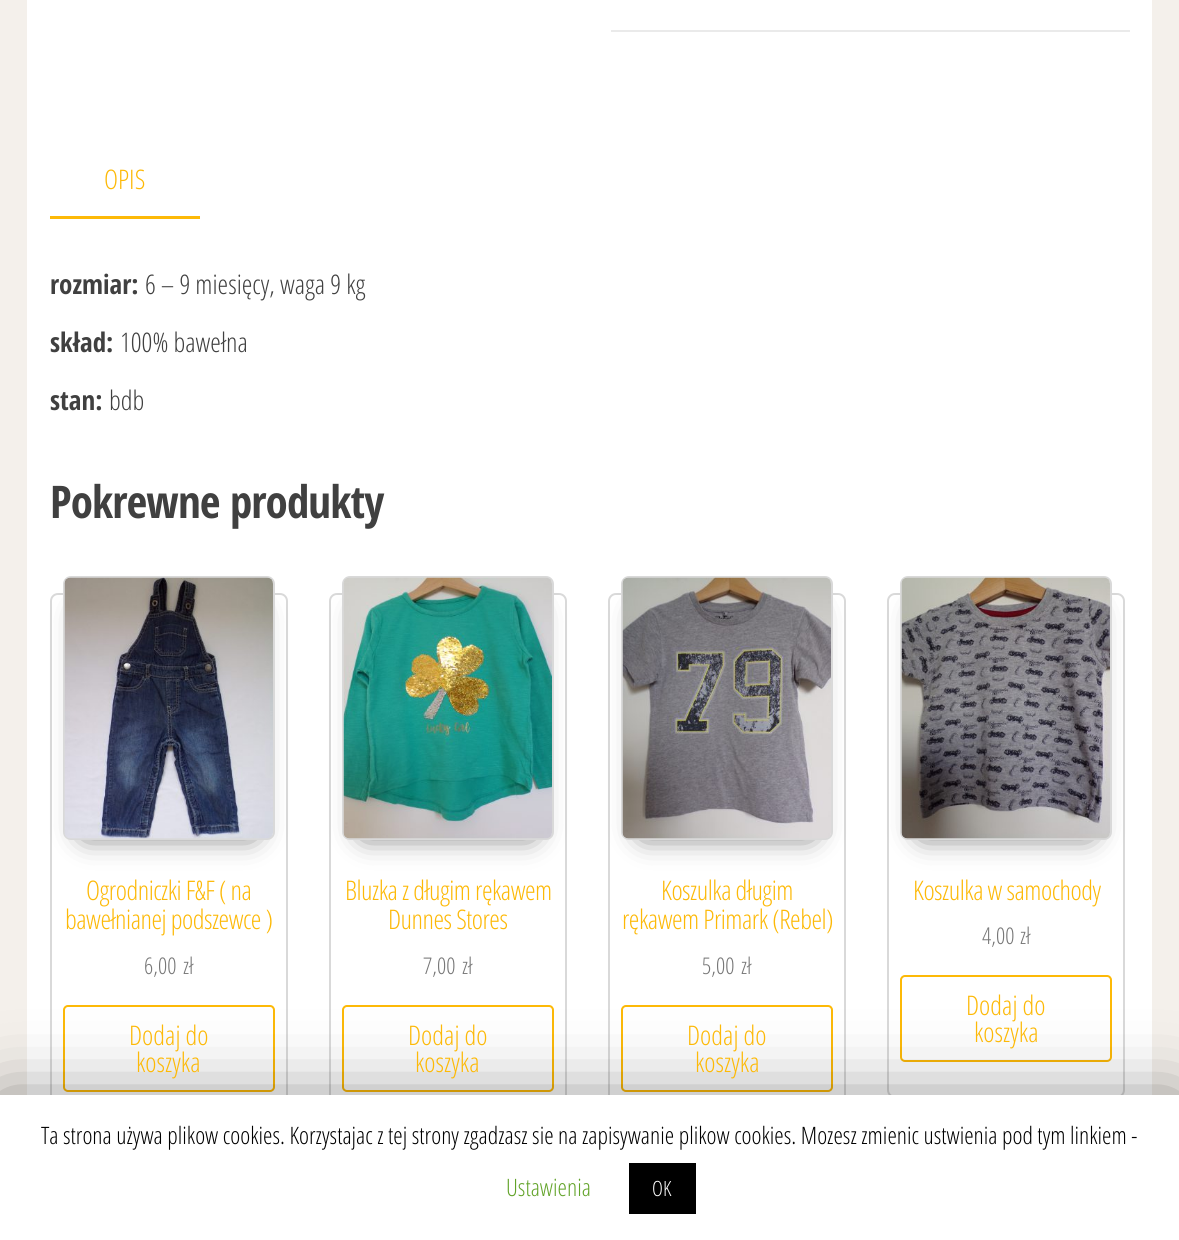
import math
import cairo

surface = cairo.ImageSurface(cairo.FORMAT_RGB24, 1179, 1240)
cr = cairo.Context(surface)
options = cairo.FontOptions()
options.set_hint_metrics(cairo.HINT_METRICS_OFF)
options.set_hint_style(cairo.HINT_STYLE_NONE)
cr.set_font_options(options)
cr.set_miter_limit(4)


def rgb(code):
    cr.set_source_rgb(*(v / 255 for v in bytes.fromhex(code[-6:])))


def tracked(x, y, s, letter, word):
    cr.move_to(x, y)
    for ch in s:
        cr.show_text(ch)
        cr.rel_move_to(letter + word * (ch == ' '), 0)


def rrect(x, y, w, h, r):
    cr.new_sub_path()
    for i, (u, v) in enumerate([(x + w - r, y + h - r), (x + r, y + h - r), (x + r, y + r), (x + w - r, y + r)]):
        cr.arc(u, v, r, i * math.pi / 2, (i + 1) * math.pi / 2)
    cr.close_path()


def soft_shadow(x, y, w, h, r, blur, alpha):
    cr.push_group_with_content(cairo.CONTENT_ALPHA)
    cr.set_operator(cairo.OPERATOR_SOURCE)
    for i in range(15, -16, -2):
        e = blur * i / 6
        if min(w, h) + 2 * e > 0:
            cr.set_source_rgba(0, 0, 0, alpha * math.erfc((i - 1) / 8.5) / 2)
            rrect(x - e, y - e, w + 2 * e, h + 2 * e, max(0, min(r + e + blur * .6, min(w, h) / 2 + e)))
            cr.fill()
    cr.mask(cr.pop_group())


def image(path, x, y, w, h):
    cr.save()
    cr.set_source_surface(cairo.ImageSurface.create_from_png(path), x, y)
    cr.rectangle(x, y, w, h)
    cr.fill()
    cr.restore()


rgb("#f4f0eb")
cr.paint()
for x, y, w, h, color in [
    (27, 0, 1125, 1095, "#ffffff"),
    (611, 30, 519, 2, "#eaeaea"),
    (50, 216, 150, 3, "#fdb907"),
]:
    rgb(color)
    cr.rectangle(x, y, w, h)
    cr.fill()
rrect(51, 594, 236, 533, 7)
rgb("#d9d9d9")
cr.stroke()
rgb("#000000")
soft_shadow(86, 614, 166, 219, 0, 15, 0.75)
rrect(64, 577, 210, 262, 7)
rgb("#d9d9d9")
cr.stroke()
image("img/1.png", 64, 577, 209, 262)
rrect(64, 1006, 210, 85, 4)
rgb("#fdb907")
cr.stroke()
rrect(330, 594, 236, 533, 7)
rgb("#d9d9d9")
cr.stroke()
rgb("#000000")
soft_shadow(365, 614, 166, 219, 0, 15, 0.75)
rrect(343, 577, 210, 262, 7)
rgb("#d9d9d9")
cr.stroke()
image("img/2.png", 343, 577, 209, 262)
rrect(343, 1006, 210, 85, 4)
rgb("#fdb907")
cr.stroke()
rrect(609, 594, 236, 533, 7)
rgb("#d9d9d9")
cr.stroke()
rgb("#000000")
soft_shadow(644, 614, 166, 219, 0, 15, 0.75)
rrect(622, 577, 210, 262, 7)
rgb("#d9d9d9")
cr.stroke()
image("img/3.png", 622, 577, 209, 262)
rrect(622, 1006, 210, 85, 4)
rgb("#fdb907")
cr.stroke()
rrect(888, 594, 236, 503, 7)
rgb("#d9d9d9")
cr.stroke()
rgb("#000000")
soft_shadow(923, 614, 166, 219, 0, 15, 0.75)
rrect(901, 577, 210, 262, 7)
rgb("#d9d9d9")
cr.stroke()
image("img/4.png", 901, 577, 209, 262)
rrect(901, 976, 210, 85, 4)
rgb("#fdb907")
cr.stroke()
rgb("#000000")
soft_shadow(0, 1103, 1179, 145, 0, 37.5, 0.5)
rgb("#ffffff")
cr.rectangle(0, 1095, 1179, 145)
cr.fill()
rgb("#000000")
cr.rectangle(629, 1163, 67, 51)
cr.fill()
cr.select_font_face("Open Sans Condensed Light")
cr.set_font_size(27)
rgb("#fdb907")
cr.move_to(104, 189)
cr.show_text("OPIS")
cr.select_font_face("Open Sans Condensed", cairo.FONT_SLANT_NORMAL, cairo.FONT_WEIGHT_BOLD)
rgb("#404040")
cr.move_to(50, 294)
cr.show_text("rozmiar:")
cr.select_font_face("Open Sans Condensed Light")
cr.move_to(145, 294)
cr.show_text("6 – 9 miesięcy, waga 9 kg")
cr.select_font_face("Open Sans Condensed", cairo.FONT_SLANT_NORMAL, cairo.FONT_WEIGHT_BOLD)
cr.move_to(50, 352)
cr.show_text("skład:")
cr.select_font_face("Open Sans Condensed Light")
cr.move_to(120, 352)
cr.show_text("100% bawełna")
cr.select_font_face("Open Sans Condensed", cairo.FONT_SLANT_NORMAL, cairo.FONT_WEIGHT_BOLD)
cr.move_to(50, 410)
cr.show_text("stan:")
cr.select_font_face("Open Sans Condensed Light")
cr.move_to(109, 410)
cr.show_text("bdb")
cr.select_font_face("Open Sans Condensed", cairo.FONT_SLANT_NORMAL, cairo.FONT_WEIGHT_BOLD)
cr.set_font_size(45)
tracked(50, 518, "Pokrewne produkty", -0.9, 0)
cr.select_font_face("Open Sans Condensed Light")
cr.set_font_size(27)
rgb("#fdb907")
tracked(86, 900, "Ogrodniczki F&F ( na", -0.5, 0)
tracked(65, 929, "bawełnianej podszewce )", -0.5, 0)
cr.set_font_size(23)
rgb("#777777")
cr.move_to(144, 974)
cr.show_text("6,00")
cr.move_to(183, 974)
cr.show_text("zł")
cr.set_font_size(27)
rgb("#fdb907")
cr.move_to(129, 1045)
cr.show_text("Dodaj do")
cr.move_to(136, 1072)
cr.show_text("koszyka")
tracked(345, 900, "Bluzka z długim rękawem", -0.5, 0)
tracked(388, 929, "Dunnes Stores", -0.5, 0)
cr.set_font_size(23)
rgb("#777777")
cr.move_to(423, 974)
cr.show_text("7,00")
cr.move_to(462, 974)
cr.show_text("zł")
cr.set_font_size(27)
rgb("#fdb907")
cr.move_to(408, 1045)
cr.show_text("Dodaj do")
cr.move_to(415, 1072)
cr.show_text("koszyka")
tracked(661, 900, "Koszulka długim", -0.5, 0)
tracked(622, 929, "rękawem Primark (Rebel)", -0.5, 0)
cr.set_font_size(23)
rgb("#777777")
cr.move_to(702, 974)
cr.show_text("5,00")
cr.move_to(741, 974)
cr.show_text("zł")
cr.set_font_size(27)
rgb("#fdb907")
cr.move_to(687, 1045)
cr.show_text("Dodaj do")
cr.move_to(695, 1072)
cr.show_text("koszyka")
tracked(913, 900, "Koszulka w samochody", -0.5, 0)
cr.set_font_size(23)
rgb("#777777")
cr.move_to(982, 944)
cr.show_text("4,00")
cr.move_to(1020, 944)
cr.show_text("zł")
cr.set_font_size(27)
rgb("#fdb907")
cr.move_to(966, 1015)
cr.show_text("Dodaj do")
cr.move_to(974, 1042)
cr.show_text("koszyka")
cr.set_font_size(24)
rgb("#000000")
cr.move_to(41, 1144)
cr.show_text("Ta strona używa plikow cookies. Korzystajac z tej strony zgadzasz sie na zapisywanie plikow cookies. Mozesz zmienic ustwienia pod tym linkiem -")
rgb("#62a329")
cr.move_to(506, 1196)
cr.show_text("Ustawienia")
cr.set_font_size(21)
rgb("#ffffff")
cr.move_to(652, 1196)
cr.show_text("OK")
surface.write_to_png("page.png")
